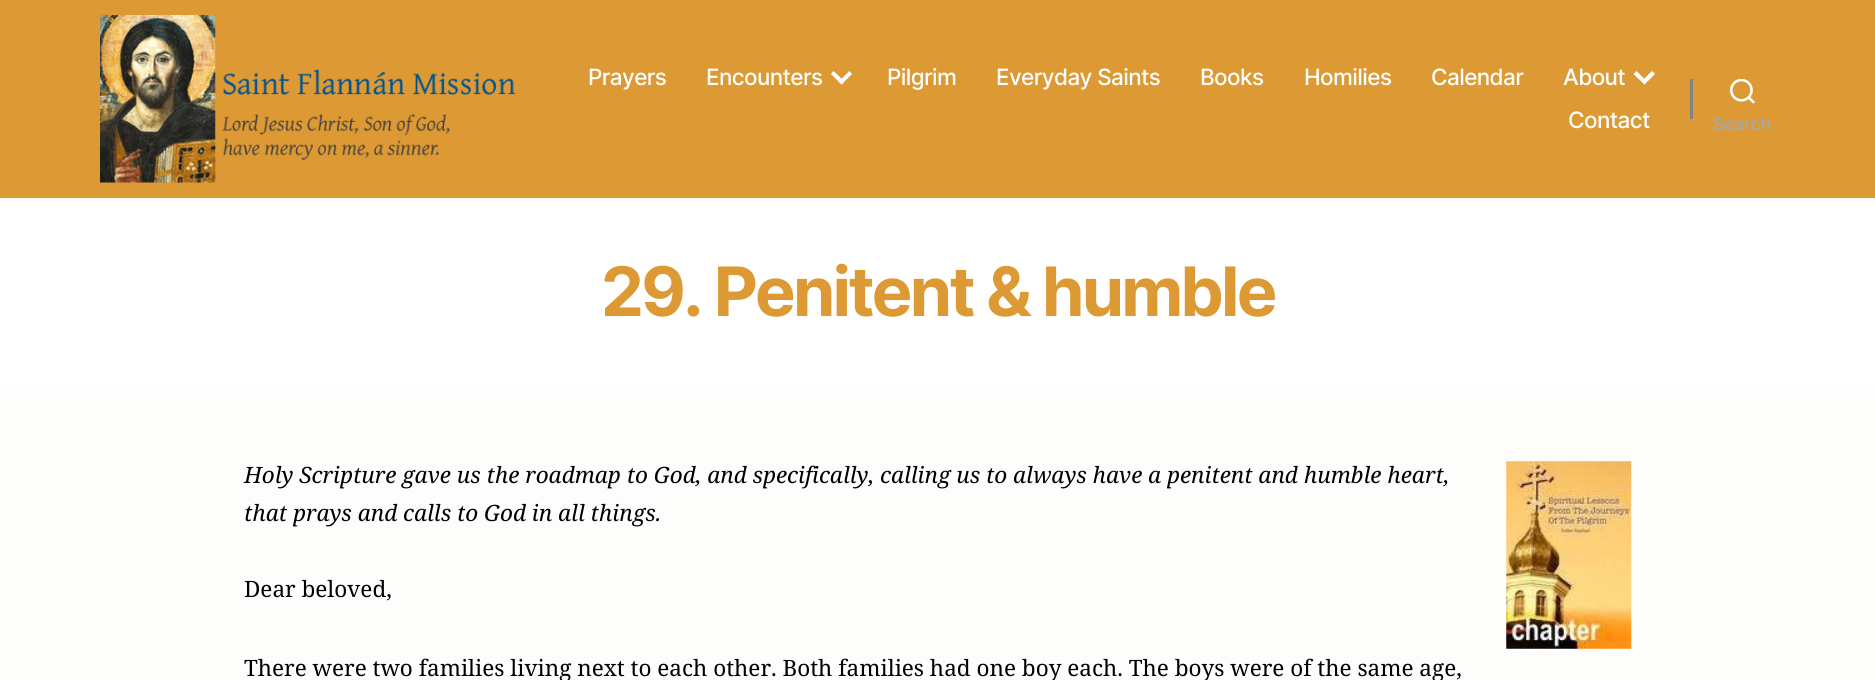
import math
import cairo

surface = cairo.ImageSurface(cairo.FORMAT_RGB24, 1875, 680)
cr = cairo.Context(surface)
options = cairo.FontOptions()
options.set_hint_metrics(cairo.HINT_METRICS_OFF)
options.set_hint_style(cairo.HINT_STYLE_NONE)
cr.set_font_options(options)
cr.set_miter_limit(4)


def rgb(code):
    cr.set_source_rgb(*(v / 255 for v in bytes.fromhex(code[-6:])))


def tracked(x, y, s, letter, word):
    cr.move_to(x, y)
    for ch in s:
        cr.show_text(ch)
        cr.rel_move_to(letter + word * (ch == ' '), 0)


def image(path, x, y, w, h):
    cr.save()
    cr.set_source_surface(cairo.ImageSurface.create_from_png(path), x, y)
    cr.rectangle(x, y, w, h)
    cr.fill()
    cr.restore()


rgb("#fdfdfc")
cr.paint()
rgb("#dd9933")
cr.rectangle(0, 0, 1875, 198)
cr.fill()
image("img/1.png", 100, 15, 416, 168)
rgb("#ffffff")
cr.new_path()
cr.move_to(831, 74)
cr.line_to(833.5, 71)
cr.line_to(844.5, 81.5)
cr.line_to(841.5, 84.5)
cr.close_path()
cr.fill()
cr.new_path()
cr.move_to(838.5, 81.5)
cr.line_to(849.5, 71)
cr.line_to(852, 74)
cr.line_to(841.5, 84.5)
cr.close_path()
cr.fill()
cr.new_path()
cr.move_to(1633.5, 74)
cr.line_to(1636.5, 71)
cr.line_to(1647, 81.5)
cr.line_to(1644.5, 84.5)
cr.close_path()
cr.fill()
cr.new_path()
cr.move_to(1641.5, 81.5)
cr.line_to(1652, 71)
cr.line_to(1655, 74)
cr.line_to(1644.5, 84.5)
cr.close_path()
cr.fill()
rgb("#828282")
cr.rectangle(1690, 79, 3, 40)
cr.fill()
image("img/2.png", 1730, 79, 25, 25)
rgb("#ffffff")
cr.rectangle(0, 198, 1875, 187)
cr.fill()
image("img/3.png", 1506, 461, 126, 188)
cr.select_font_face("Inter Medium")
cr.set_font_size(22.5)
for x, y, s in [
    (588, 85, "Prayers"),
    (706, 85, "Encounters"),
    (887, 85, "Pilgrim"),
    (996, 85, "Everyday Saints"),
    (1200, 85, "Books"),
    (1304, 85, "Homilies"),
    (1431, 85, "Calendar"),
    (1563, 85, "About"),
    (1568, 128, "Contact"),
]:
    tracked(x, y, s, -0.6, 0)
cr.select_font_face("Inter SemiBold")
cr.set_font_size(17.5)
rgb("#a7a7a7")
tracked(1713, 130, "Search", -0.25, 0)
cr.select_font_face("Inter", cairo.FONT_SLANT_NORMAL, cairo.FONT_WEIGHT_BOLD)
cr.set_font_size(68.1)
rgb("#dd9933")
tracked(601, 316, "29. Penitent & humble", -2.8, 0)
cr.select_font_face("Noto Serif", cairo.FONT_SLANT_ITALIC)
cr.set_font_size(22.5)
rgb("#000000")
cr.move_to(244, 483)
cr.show_text("Holy Scripture gave us the roadmap to God, and specifically, calling us to always have a penitent and humble heart,")
cr.move_to(244, 521)
cr.show_text("that prays and calls to God in all things.")
cr.select_font_face("Noto Serif")
cr.move_to(244, 597)
cr.show_text("Dear beloved,")
cr.move_to(244, 676)
cr.show_text("There were two families living next to each other. Both families had one boy each. The boys were of the same age,")
surface.write_to_png("page.png")
